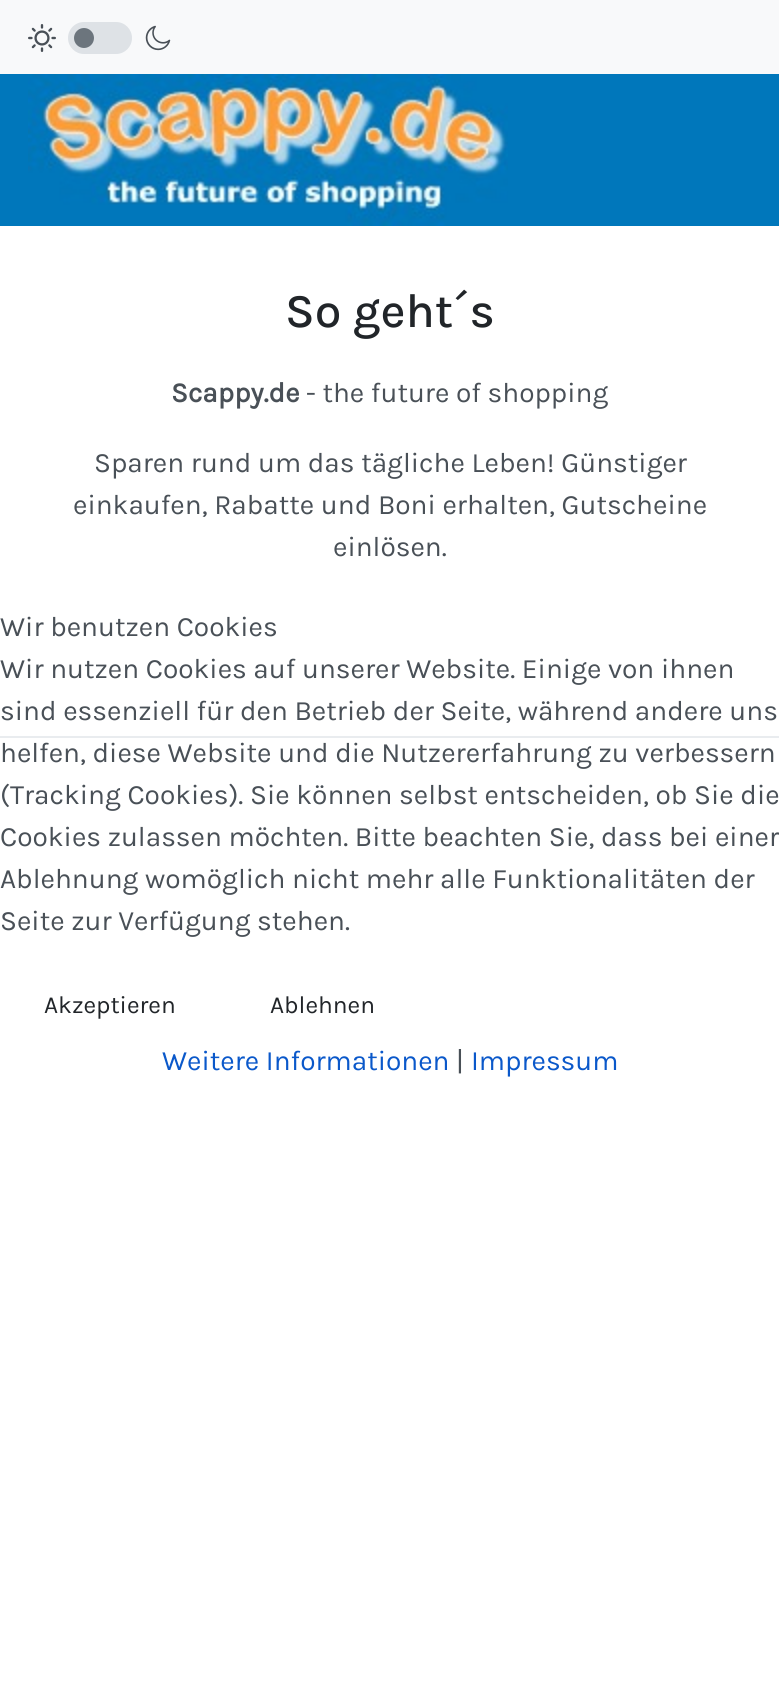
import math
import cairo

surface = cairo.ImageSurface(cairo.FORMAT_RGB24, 779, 1687)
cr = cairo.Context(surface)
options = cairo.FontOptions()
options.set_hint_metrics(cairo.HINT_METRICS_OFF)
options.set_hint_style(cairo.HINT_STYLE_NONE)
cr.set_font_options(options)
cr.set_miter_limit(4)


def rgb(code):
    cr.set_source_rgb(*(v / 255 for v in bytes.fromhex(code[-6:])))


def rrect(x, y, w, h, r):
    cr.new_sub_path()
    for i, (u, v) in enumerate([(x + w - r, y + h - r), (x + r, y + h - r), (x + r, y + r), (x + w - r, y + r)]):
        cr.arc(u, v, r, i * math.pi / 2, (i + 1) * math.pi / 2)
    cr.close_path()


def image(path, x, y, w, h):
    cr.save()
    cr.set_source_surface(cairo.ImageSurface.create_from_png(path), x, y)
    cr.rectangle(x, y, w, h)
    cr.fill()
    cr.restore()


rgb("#ffffff")
cr.paint()
rgb("#f8f9fa")
cr.rectangle(0, 0, 779, 74)
cr.fill()
image("img/1.png", 28, 24, 28, 28)
rgb("#dee2e6")
rrect(68, 22, 64, 32, 16)
cr.fill()
rgb("#6c757d")
cr.arc(84, 38, 10, 0, 2 * math.pi)
cr.fill()
image("img/2.png", 145, 25, 26, 26)
rgb("#0077bb")
cr.rectangle(0, 74, 779, 152)
cr.fill()
image("img/3.png", 28, 74, 480, 152)
rgb("#e9ecef")
cr.rectangle(0, 736, 779, 2)
cr.fill()
cr.select_font_face("Karla Medium")
cr.set_font_size(48)
rgb("#212529")
cr.move_to(285, 327)
cr.show_text("So geht´s")
cr.select_font_face("Karla", cairo.FONT_SLANT_NORMAL, cairo.FONT_WEIGHT_BOLD)
cr.set_font_size(28)
rgb("#495057")
cr.move_to(171, 402)
cr.show_text("Scappy.de")
cr.select_font_face("Karla")
for x, y, s in [
    (306, 402, "- the future of shopping"),
    (94, 472, "Sparen rund um das tägliche Leben! Günstiger"),
    (73, 514, "einkaufen, Rabatte und Boni erhalten, Gutscheine"),
    (333, 556, "einlösen."),
    (0, 636, "Wir benutzen Cookies"),
    (0, 678, "Wir nutzen Cookies auf unserer Website. Einige von ihnen"),
    (0, 720, "sind essenziell für den Betrieb der Seite, während andere uns"),
    (0, 762, "helfen, diese Website und die Nutzererfahrung zu verbessern"),
    (0, 804, "(Tracking Cookies). Sie können selbst entscheiden, ob Sie die"),
    (0, 846, "Cookies zulassen möchten. Bitte beachten Sie, dass bei einer"),
    (0, 888, "Ablehnung womöglich nicht mehr alle Funktionalitäten der"),
    (0, 930, "Seite zur Verfügung stehen."),
]:
    cr.move_to(x, y)
    cr.show_text(s)
cr.set_font_size(24.5)
rgb("#212529")
cr.move_to(44, 1013)
cr.show_text("Akzeptieren")
cr.move_to(270, 1013)
cr.show_text("Ablehnen")
cr.set_font_size(28)
rgb("#0a58ca")
cr.move_to(162, 1070)
cr.show_text("Weitere Informationen")
rgb("#495057")
cr.move_to(456, 1070)
cr.show_text("|")
rgb("#0a58ca")
cr.move_to(471, 1070)
cr.show_text("Impressum")
surface.write_to_png("page.png")
